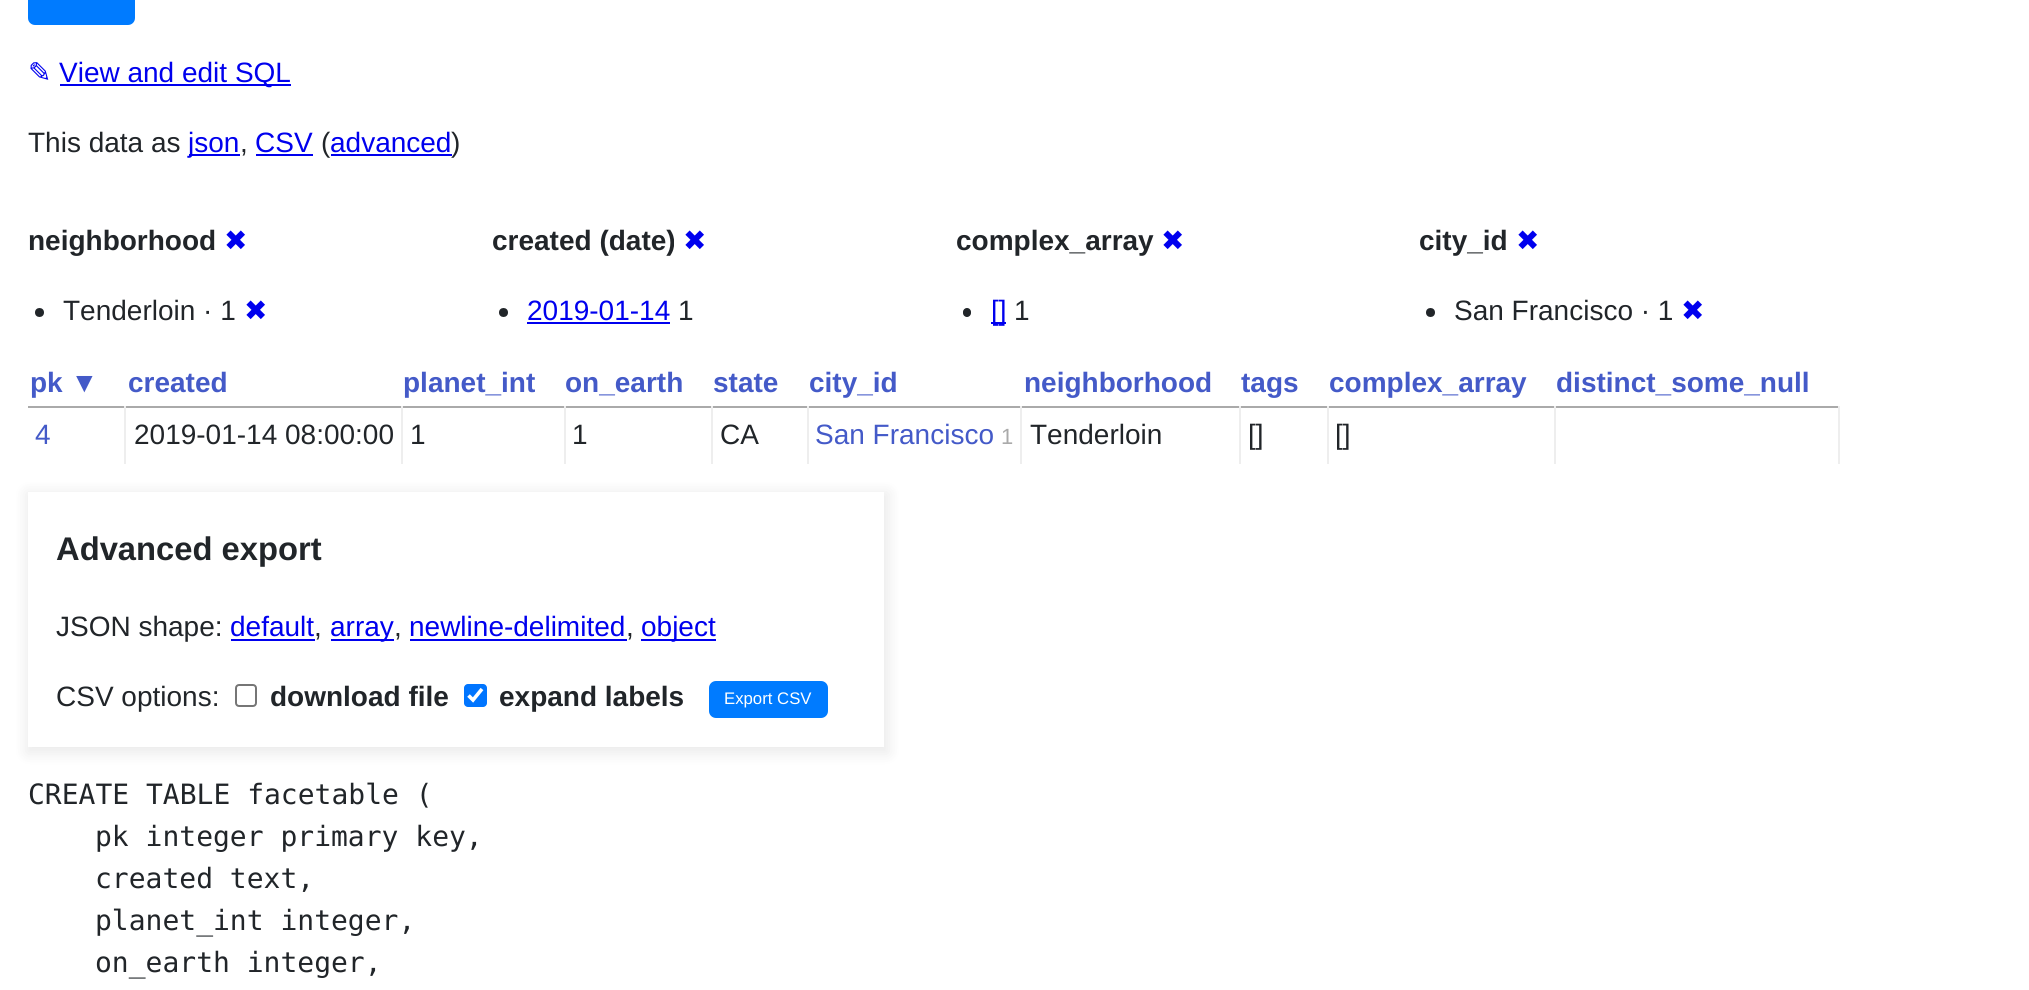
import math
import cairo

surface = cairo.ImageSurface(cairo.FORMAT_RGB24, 2029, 990)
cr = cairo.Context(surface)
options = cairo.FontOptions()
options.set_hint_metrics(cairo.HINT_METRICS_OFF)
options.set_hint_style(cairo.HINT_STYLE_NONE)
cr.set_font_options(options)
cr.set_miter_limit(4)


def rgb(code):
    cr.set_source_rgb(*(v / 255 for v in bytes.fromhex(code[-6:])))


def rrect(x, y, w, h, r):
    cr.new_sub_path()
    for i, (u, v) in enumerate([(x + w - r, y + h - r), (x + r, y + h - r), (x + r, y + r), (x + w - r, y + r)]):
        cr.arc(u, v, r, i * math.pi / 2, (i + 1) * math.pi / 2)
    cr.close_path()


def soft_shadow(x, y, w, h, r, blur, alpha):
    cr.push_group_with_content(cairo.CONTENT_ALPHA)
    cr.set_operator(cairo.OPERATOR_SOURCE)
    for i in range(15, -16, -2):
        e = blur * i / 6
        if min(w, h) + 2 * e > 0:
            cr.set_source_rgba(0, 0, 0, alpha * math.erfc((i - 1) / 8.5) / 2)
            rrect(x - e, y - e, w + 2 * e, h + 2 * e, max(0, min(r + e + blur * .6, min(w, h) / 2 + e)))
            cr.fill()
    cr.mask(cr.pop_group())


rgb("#ffffff")
cr.paint()
rgb("#007bff")
rrect(29, -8, 105, 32, 6)
cr.fill_preserve()
cr.stroke()
for x, y, w, h, color in [
    (60, 84, 231, 2, "#0000ee"),
    (189, 154, 51, 2, "#0000ee"),
    (256, 154, 57, 2, "#0000ee"),
    (331, 154, 121, 2, "#0000ee"),
]:
    rgb(color)
    cr.rectangle(x, y, w, h)
    cr.fill()
rgb("#212529")
cr.arc(39.5, 312.5, 4.5, 0, 2 * math.pi)
cr.fill()
cr.arc(503.5, 312.5, 4.5, 0, 2 * math.pi)
cr.fill()
rgb("#0000ee")
cr.rectangle(527, 322, 143, 2)
cr.fill()
rgb("#212529")
rrect(963, 308, 8, 9, 4)
cr.fill()
rgb("#0000ee")
cr.rectangle(991, 322, 15, 2)
cr.fill()
rgb("#212529")
cr.arc(1430.5, 312.5, 4.5, 0, 2 * math.pi)
cr.fill()
for x, y, w, h, color in [
    (28, 406, 1811, 2, "#aaaaaa"),
    (1838, 406, 2, 58, "#eeeeee"),
    (124, 406, 2, 58, "#eeeeee"),
    (401, 406, 2, 58, "#eeeeee"),
    (564, 406, 2, 58, "#eeeeee"),
    (711, 406, 2, 58, "#eeeeee"),
    (807, 406, 2, 58, "#eeeeee"),
    (1020, 406, 2, 58, "#eeeeee"),
    (1239, 406, 2, 58, "#eeeeee"),
    (1327, 406, 2, 58, "#eeeeee"),
    (1554, 406, 2, 58, "#eeeeee"),
]:
    rgb(color)
    cr.rectangle(x, y, w, h)
    cr.fill()
cr.save()
cr.set_fill_rule(cairo.FILL_RULE_EVEN_ODD)
cr.new_path()
cr.move_to(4, 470)
cr.line_to(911, 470)
cr.line_to(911, 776)
cr.line_to(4, 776)
cr.close_path()
cr.move_to(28, 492)
cr.line_to(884, 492)
cr.line_to(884, 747)
cr.line_to(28, 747)
cr.close_path()
cr.clip()
rgb("#000000")
soft_shadow(26, 492, 863, 262, 0, 7, 0.08)
cr.restore()
for x, y, w, h, color in [
    (231, 639, 84, 2, "#0000ee"),
    (331, 639, 63, 2, "#0000ee"),
    (410, 639, 217, 2, "#0000ee"),
    (641, 639, 75, 2, "#0000ee"),
]:
    rgb(color)
    cr.rectangle(x, y, w, h)
    cr.fill()
rrect(236, 685, 20, 21, 3)
rgb("#767676")
cr.stroke()
rgb("#0075ff")
rrect(464, 684, 23, 23, 4)
cr.fill()
cr.new_path()
cr.move_to(468.5, 695.5)
cr.line_to(473, 700)
cr.line_to(482, 689)
rgb("#ffffff")
cr.set_line_width(3.6)
cr.stroke()
rgb("#007bff")
rrect(710, 682, 117, 35, 6)
cr.fill_preserve()
cr.set_line_width(2)
cr.stroke()
cr.select_font_face("DejaVu Sans")
cr.set_font_size(28)
rgb("#0000ee")
cr.move_to(28, 82)
cr.show_text("✎")
cr.select_font_face("Liberation Sans")
cr.move_to(59, 82)
cr.show_text("View and edit SQL")
rgb("#212529")
cr.move_to(28, 152)
cr.show_text("This data as")
rgb("#0000ee")
cr.move_to(188, 152)
cr.show_text("json")
rgb("#212529")
cr.move_to(240, 152)
cr.show_text(",")
rgb("#0000ee")
cr.move_to(255, 152)
cr.show_text("CSV")
rgb("#212529")
cr.move_to(321, 152)
cr.show_text("(")
rgb("#0000ee")
cr.move_to(330, 152)
cr.show_text("advanced")
rgb("#212529")
cr.move_to(451, 152)
cr.show_text(")")
cr.select_font_face("Liberation Sans", cairo.FONT_SLANT_NORMAL, cairo.FONT_WEIGHT_BOLD)
cr.move_to(28, 250)
cr.show_text("neighborhood")
cr.select_font_face("DejaVu Sans")
rgb("#0000ee")
cr.move_to(224, 250)
cr.show_text("✖")
cr.select_font_face("Liberation Sans")
rgb("#212529")
cr.move_to(63, 320)
cr.show_text("Tenderloin · 1")
cr.select_font_face("DejaVu Sans")
rgb("#0000ee")
cr.move_to(244, 320)
cr.show_text("✖")
cr.select_font_face("Liberation Sans", cairo.FONT_SLANT_NORMAL, cairo.FONT_WEIGHT_BOLD)
rgb("#212529")
cr.move_to(492, 250)
cr.show_text("created (date)")
cr.select_font_face("DejaVu Sans")
rgb("#0000ee")
cr.move_to(683, 250)
cr.show_text("✖")
cr.select_font_face("Liberation Sans")
cr.move_to(527, 320)
cr.show_text("2019-01-14")
rgb("#212529")
cr.move_to(678, 320)
cr.show_text("1")
cr.select_font_face("Liberation Sans", cairo.FONT_SLANT_NORMAL, cairo.FONT_WEIGHT_BOLD)
cr.move_to(956, 250)
cr.show_text("complex_array")
cr.select_font_face("DejaVu Sans")
rgb("#0000ee")
cr.move_to(1161, 250)
cr.show_text("✖")
cr.select_font_face("Liberation Sans")
cr.move_to(991, 320)
cr.show_text("[]")
rgb("#212529")
cr.move_to(1014, 320)
cr.show_text("1")
cr.select_font_face("Liberation Sans", cairo.FONT_SLANT_NORMAL, cairo.FONT_WEIGHT_BOLD)
cr.move_to(1419, 250)
cr.show_text("city_id")
cr.select_font_face("DejaVu Sans")
rgb("#0000ee")
cr.move_to(1516, 250)
cr.show_text("✖")
cr.select_font_face("Liberation Sans")
rgb("#212529")
cr.move_to(1454, 320)
cr.show_text("San Francisco · 1")
cr.select_font_face("DejaVu Sans")
rgb("#0000ee")
cr.move_to(1681, 320)
cr.show_text("✖")
cr.select_font_face("Liberation Sans", cairo.FONT_SLANT_NORMAL, cairo.FONT_WEIGHT_BOLD)
rgb("#445ac8")
for x, y, s in [
    (30, 392, "pk ▼"),
    (128, 392, "created"),
    (403, 392, "planet_int"),
    (565, 392, "on_earth"),
    (713, 392, "state"),
    (809, 392, "city_id"),
    (1024, 392, "neighborhood"),
    (1241, 392, "tags"),
    (1329, 392, "complex_array"),
    (1556, 392, "distinct_some_null"),
]:
    cr.move_to(x, y)
    cr.show_text(s)
cr.select_font_face("Liberation Sans")
cr.move_to(35, 444)
cr.show_text("4")
rgb("#212529")
for x, y, s in [
    (134, 444, "2019-01-14 08:00:00"),
    (410, 444, "1"),
    (572, 444, "1"),
    (720, 444, "CA"),
]:
    cr.move_to(x, y)
    cr.show_text(s)
rgb("#445ac8")
cr.move_to(815, 444)
cr.show_text("San Francisco")
cr.set_font_size(22)
rgb("#aaaaaa")
cr.move_to(1001, 444)
cr.show_text("1")
cr.set_font_size(28)
rgb("#212529")
for x, y, s in [
    (1030, 444, "Tenderloin"),
    (1248, 444, "[]"),
    (1335, 444, "[]"),
]:
    cr.move_to(x, y)
    cr.show_text(s)
cr.select_font_face("Liberation Sans", cairo.FONT_SLANT_NORMAL, cairo.FONT_WEIGHT_BOLD)
cr.set_font_size(32.75)
cr.move_to(56, 560)
cr.show_text("Advanced export")
cr.select_font_face("Liberation Sans")
cr.set_font_size(28)
cr.move_to(56, 636)
cr.show_text("JSON shape:")
rgb("#0000ee")
cr.move_to(230, 636)
cr.show_text("default")
rgb("#212529")
cr.move_to(314, 636)
cr.show_text(",")
rgb("#0000ee")
cr.move_to(330, 636)
cr.show_text("array")
rgb("#212529")
cr.move_to(394, 636)
cr.show_text(",")
rgb("#0000ee")
cr.move_to(409, 636)
cr.show_text("newline-delimited")
rgb("#212529")
cr.move_to(626, 636)
cr.show_text(",")
rgb("#0000ee")
cr.move_to(641, 636)
cr.show_text("object")
rgb("#212529")
cr.move_to(56, 706)
cr.show_text("CSV options:")
cr.select_font_face("Liberation Sans", cairo.FONT_SLANT_NORMAL, cairo.FONT_WEIGHT_BOLD)
cr.move_to(270, 706)
cr.show_text("download file")
cr.move_to(499, 706)
cr.show_text("expand labels")
cr.select_font_face("Liberation Sans")
cr.set_font_size(16.75)
rgb("#ffffff")
cr.move_to(724, 704)
cr.show_text("Export CSV")
cr.select_font_face("DejaVu Sans Mono")
cr.set_font_size(28)
rgb("#212529")
for x, y, s in [
    (28, 804, "CREATE TABLE facetable ("),
    (95, 846, "pk integer primary key,"),
    (95, 888, "created text,"),
    (95, 930, "planet_int integer,"),
    (95, 972, "on_earth integer,"),
]:
    cr.move_to(x, y)
    cr.show_text(s)
surface.write_to_png("page.png")
